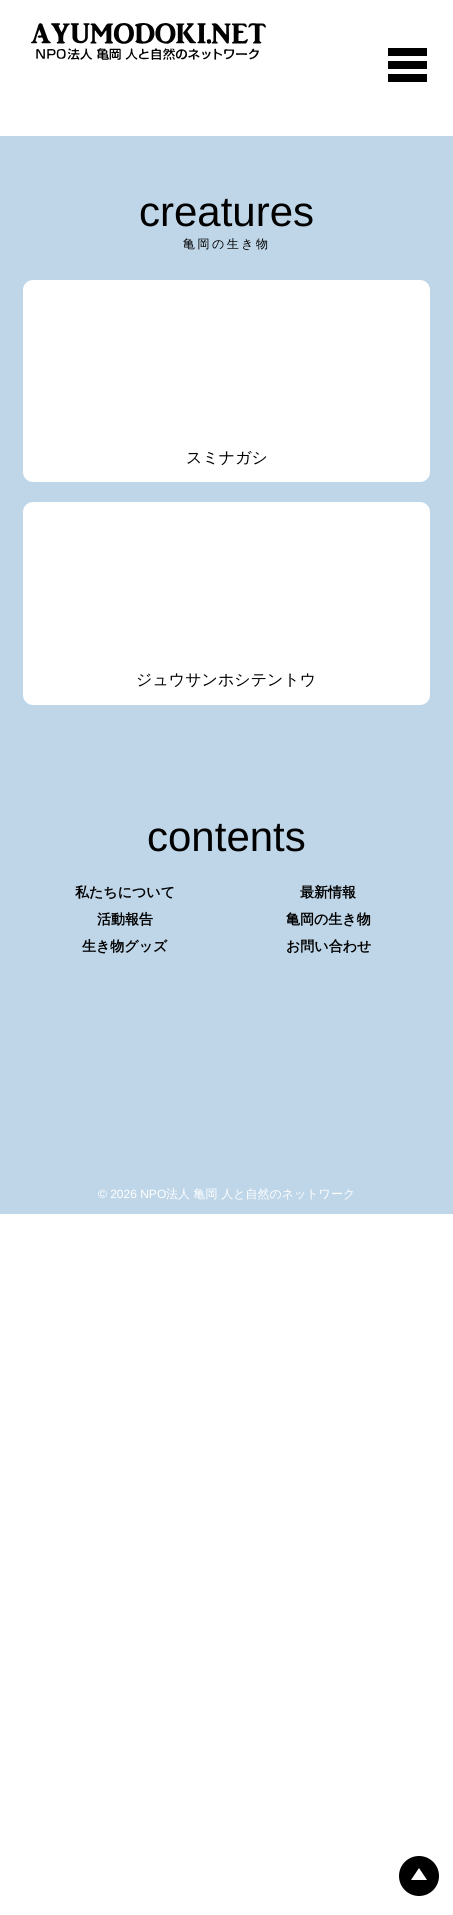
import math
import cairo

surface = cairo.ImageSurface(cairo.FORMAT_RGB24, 453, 1915)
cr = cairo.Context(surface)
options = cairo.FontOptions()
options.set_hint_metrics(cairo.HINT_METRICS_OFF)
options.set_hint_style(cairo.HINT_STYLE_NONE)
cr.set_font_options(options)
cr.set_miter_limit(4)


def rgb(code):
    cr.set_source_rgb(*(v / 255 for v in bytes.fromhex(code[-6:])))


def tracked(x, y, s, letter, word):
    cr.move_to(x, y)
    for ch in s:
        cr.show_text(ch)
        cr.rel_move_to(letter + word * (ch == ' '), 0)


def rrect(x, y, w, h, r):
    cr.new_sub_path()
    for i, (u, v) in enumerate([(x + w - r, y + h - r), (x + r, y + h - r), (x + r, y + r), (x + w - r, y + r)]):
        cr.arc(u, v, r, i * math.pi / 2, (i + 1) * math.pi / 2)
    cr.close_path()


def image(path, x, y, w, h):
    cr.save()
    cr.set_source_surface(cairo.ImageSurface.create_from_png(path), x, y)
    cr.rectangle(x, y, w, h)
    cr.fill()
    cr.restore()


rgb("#ffffff")
cr.paint()
image("img/1.png", 31, 23, 235, 37)
for x, y, w, h, color in [
    (388, 48, 39, 8, "#000000"),
    (388, 61, 39, 8, "#000000"),
    (388, 74, 39, 8, "#000000"),
    (0, 136, 453, 1078, "#bfd6e8"),
]:
    rgb(color)
    cr.rectangle(x, y, w, h)
    cr.fill()
rgb("#ffffff")
rrect(23, 280, 407, 202, 10)
cr.fill()
rrect(23, 502, 407, 203, 10)
cr.fill()
rgb("#000000")
cr.arc(419, 1876, 20, 0, 2 * math.pi)
cr.fill()
rgb("#ffffff")
cr.new_path()
cr.move_to(427, 1880)
cr.line_to(411, 1880)
cr.line_to(419, 1868)
cr.close_path()
cr.fill()
cr.select_font_face("Liberation Sans")
cr.set_font_size(42)
rgb("#000000")
cr.move_to(139, 226)
cr.show_text("creatures")
cr.select_font_face("WenQuanYi Zen Hei Medium")
cr.set_font_size(12)
tracked(183, 248, "亀岡の生き物", 2.5, 0)
cr.set_font_size(16)
cr.move_to(186, 463)
cr.show_text("スミナガシ")
cr.move_to(136, 685)
cr.show_text("ジュウサンホシテントウ")
cr.select_font_face("Liberation Sans")
cr.set_font_size(42)
cr.move_to(147, 851)
cr.show_text("contents")
cr.select_font_face("WenQuanYi Zen Hei", cairo.FONT_SLANT_NORMAL, cairo.FONT_WEIGHT_BOLD)
cr.set_font_size(14)
for x, y, s in [
    (75, 897, "私たちについて"),
    (300, 897, "最新情報"),
    (97, 924, "活動報告"),
    (286, 924, "亀岡の生き物"),
    (82, 951, "生き物グッズ"),
    (286, 951, "お問い合わせ"),
]:
    cr.move_to(x, y)
    cr.show_text(s)
cr.select_font_face("Liberation Sans")
cr.set_font_size(12)
rgb("#ffffff")
cr.move_to(98, 1198)
cr.show_text("© 2026 NPO")
cr.select_font_face("WenQuanYi Zen Hei Medium")
cr.move_to(166, 1198)
cr.show_text("法人 亀岡 人と自然のネットワーク")
surface.write_to_png("page.png")
